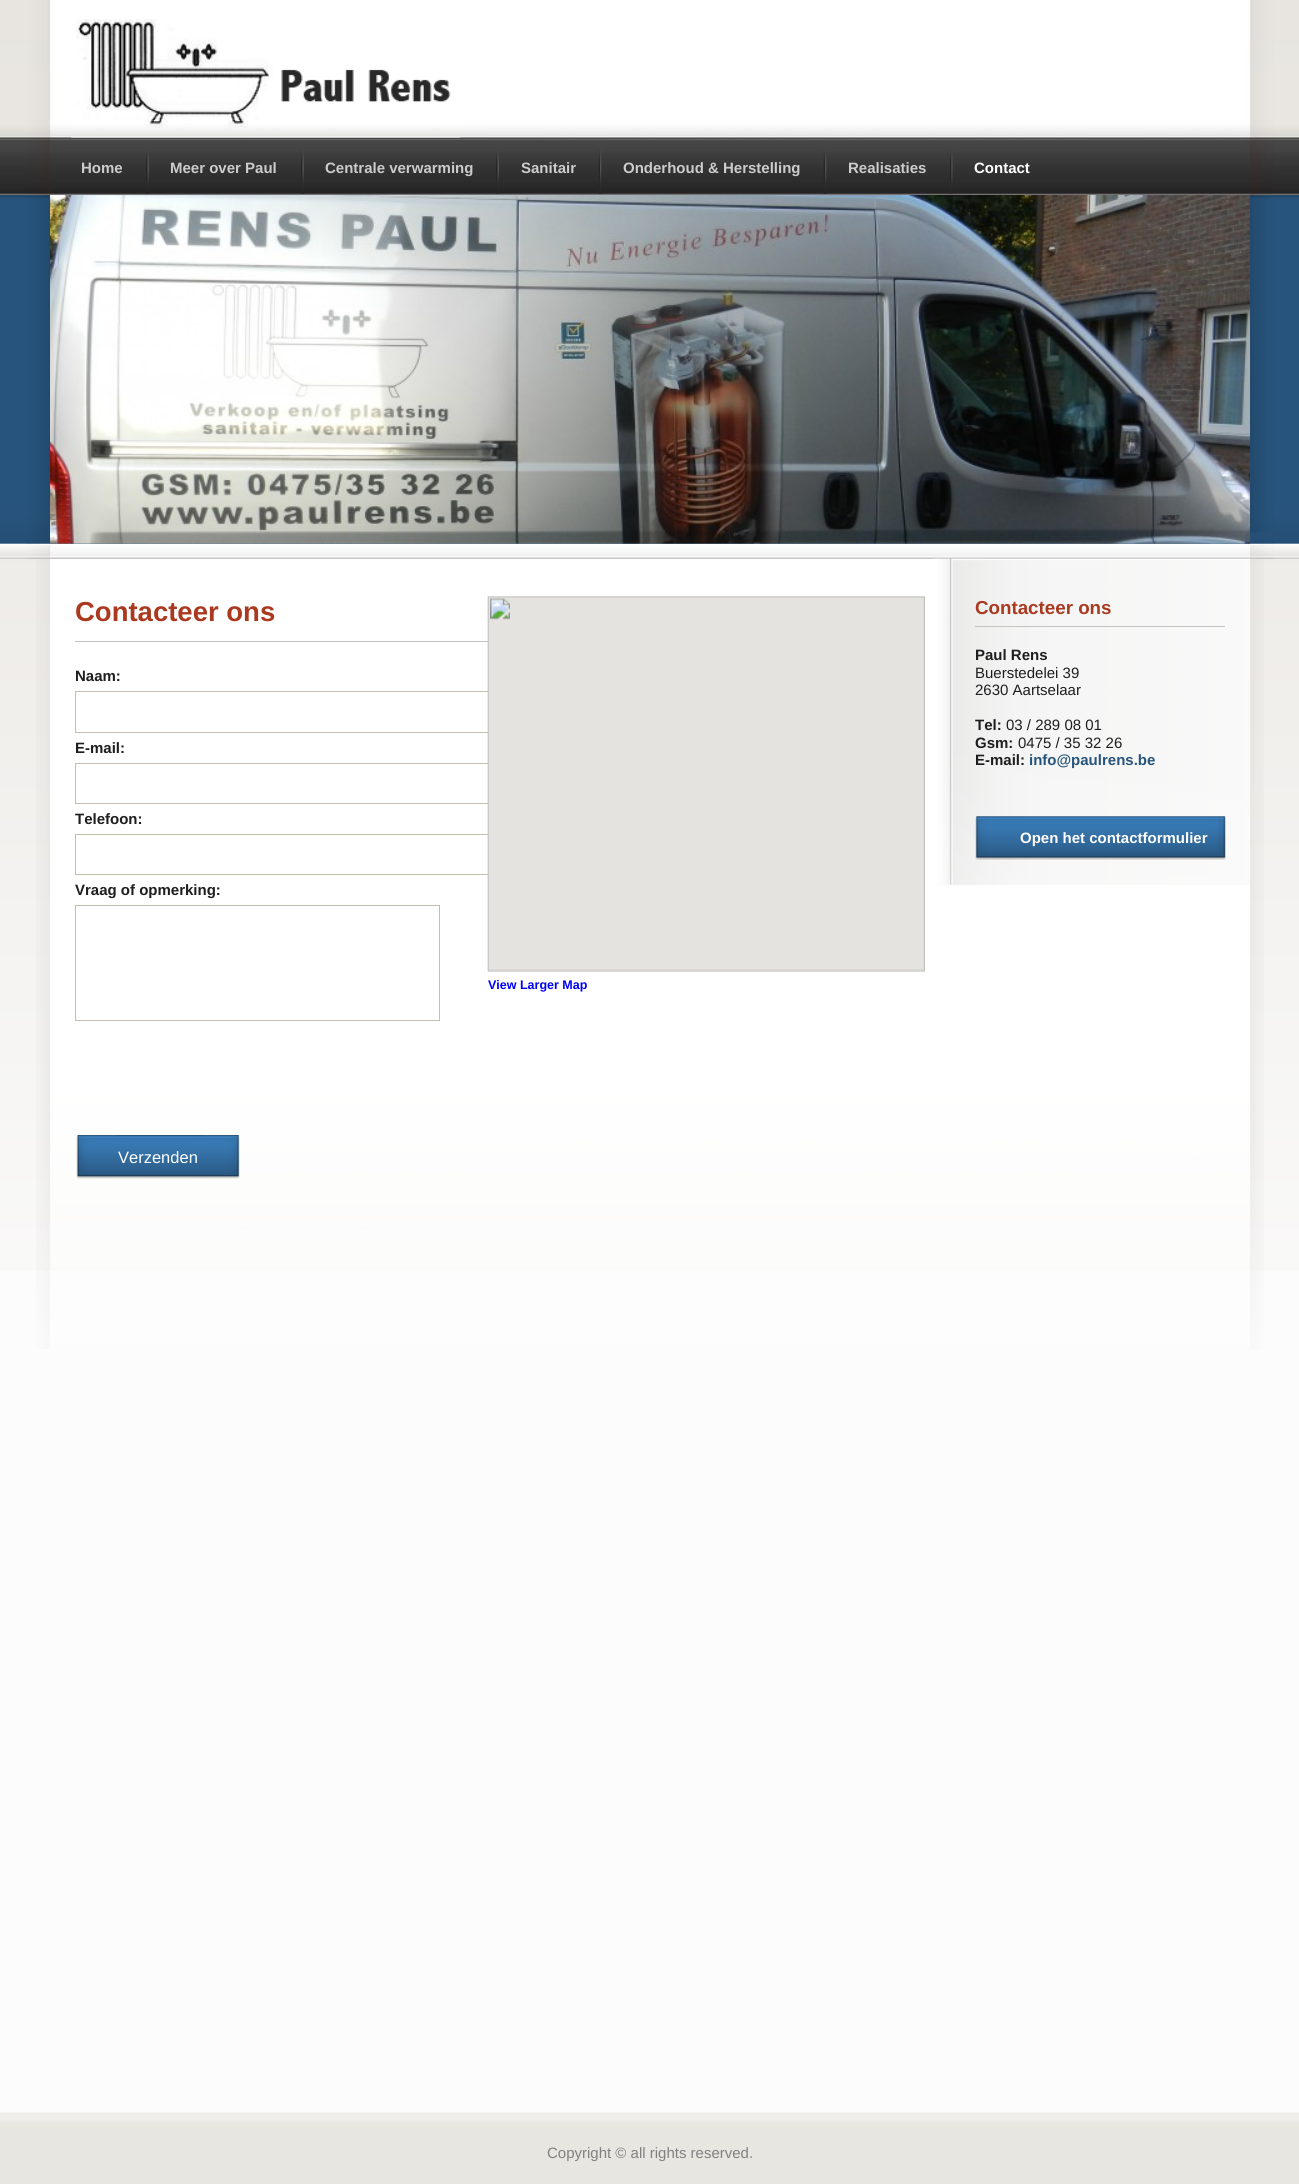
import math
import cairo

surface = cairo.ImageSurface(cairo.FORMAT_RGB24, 1299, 2184)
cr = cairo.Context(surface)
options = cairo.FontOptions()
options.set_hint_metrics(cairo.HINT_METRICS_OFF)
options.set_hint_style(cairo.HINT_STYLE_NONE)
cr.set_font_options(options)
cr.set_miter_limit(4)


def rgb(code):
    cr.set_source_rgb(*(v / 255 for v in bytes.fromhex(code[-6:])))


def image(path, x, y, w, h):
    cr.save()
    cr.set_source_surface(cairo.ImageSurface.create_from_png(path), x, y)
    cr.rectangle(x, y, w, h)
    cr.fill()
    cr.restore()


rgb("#fcfcfc")
cr.paint()
image("img/1.png", 0, 0, 1299, 1270)
image("img/2.png", 36, 558, 1228, 791)
image("img/3.png", 26, 0, 1248, 559)
image("img/4.png", 71, 19, 389, 119)
image("img/5.png", 146, 150, 3, 44)
image("img/5.png", 301, 150, 3, 44)
image("img/5.png", 496, 150, 3, 44)
image("img/6.png", 598, 150, 4, 44)
image("img/6.png", 823, 150, 4, 44)
image("img/7.png", 950, 150, 3, 44)
image("img/8.png", 50, 195, 1200, 349)
rgb("#c4c3c0")
cr.rectangle(75, 641, 413, 1)
cr.fill()
cr.rectangle(75.5, 691.5, 465, 41)
rgb("#c5bead")
cr.set_line_width(1)
cr.stroke()
cr.rectangle(75.5, 763.5, 465, 40)
cr.stroke()
cr.rectangle(75.5, 834.5, 465, 40)
cr.stroke()
image("img/9.png", 487, 596, 438, 376)
cr.rectangle(75.5, 905.5, 364, 115)
cr.stroke()
image("img/10.png", 76, 1135, 164, 44)
image("img/11.png", 932, 558, 318, 327)
rgb("#c4c3c0")
cr.rectangle(975, 626, 250, 1)
cr.fill()
image("img/12.png", 975, 816, 251, 44)
image("img/13.png", 0, 2112, 1299, 72)
cr.select_font_face("Liberation Sans", cairo.FONT_SLANT_NORMAL, cairo.FONT_WEIGHT_BOLD)
cr.set_font_size(15)
rgb("#cccccc")
for x, y, s in [
    (81, 173, "Home"),
    (170, 173, "Meer over Paul"),
    (325, 173, "Centrale verwarming"),
    (521, 173, "Sanitair"),
    (623, 173, "Onderhoud & Herstelling"),
    (848, 173, "Realisaties"),
]:
    cr.move_to(x, y)
    cr.show_text(s)
rgb("#ffffff")
cr.move_to(974, 173)
cr.show_text("Contact")
cr.set_font_size(27.5)
rgb("#aa391f")
cr.move_to(75, 621)
cr.show_text("Contacteer ons")
cr.set_font_size(12.5)
rgb("#0000ff")
cr.move_to(488, 989)
cr.show_text("View Larger Map")
cr.set_font_size(15)
rgb("#1e1e1e")
for x, y, s in [
    (75, 681, "Naam:"),
    (75, 753, "E-mail:"),
    (75, 824, "Telefoon:"),
    (75, 895, "Vraag of opmerking:"),
]:
    cr.move_to(x, y)
    cr.show_text(s)
cr.select_font_face("Liberation Sans")
cr.set_font_size(16.5)
rgb("#ffffff")
cr.move_to(118, 1163)
cr.show_text("Verzenden")
cr.select_font_face("Liberation Sans", cairo.FONT_SLANT_NORMAL, cairo.FONT_WEIGHT_BOLD)
cr.set_font_size(18.75)
rgb("#aa391f")
cr.move_to(975, 614)
cr.show_text("Contacteer ons")
cr.set_font_size(15)
rgb("#1e1e1e")
cr.move_to(975, 660)
cr.show_text("Paul Rens")
cr.select_font_face("Liberation Sans")
cr.move_to(975, 678)
cr.show_text("Buerstedelei 39")
cr.move_to(975, 695)
cr.show_text("2630 Aartselaar")
cr.select_font_face("Liberation Sans", cairo.FONT_SLANT_NORMAL, cairo.FONT_WEIGHT_BOLD)
cr.move_to(975, 730)
cr.show_text("Tel:")
cr.select_font_face("Liberation Sans")
cr.move_to(1006, 730)
cr.show_text("03 / 289 08 01")
cr.select_font_face("Liberation Sans", cairo.FONT_SLANT_NORMAL, cairo.FONT_WEIGHT_BOLD)
cr.move_to(975, 748)
cr.show_text("Gsm:")
cr.select_font_face("Liberation Sans")
cr.move_to(1018, 748)
cr.show_text("0475 / 35 32 26")
cr.select_font_face("Liberation Sans", cairo.FONT_SLANT_NORMAL, cairo.FONT_WEIGHT_BOLD)
cr.move_to(975, 765)
cr.show_text("E-mail:")
rgb("#27547c")
cr.move_to(1029, 765)
cr.show_text("info@paulrens.be")
rgb("#ffffff")
cr.move_to(1020, 843)
cr.show_text("Open het contactformulier")
cr.select_font_face("Liberation Sans")
rgb("#818181")
cr.move_to(547, 2158)
cr.show_text("Copyright © all rights reserved.")
surface.write_to_png("page.png")
